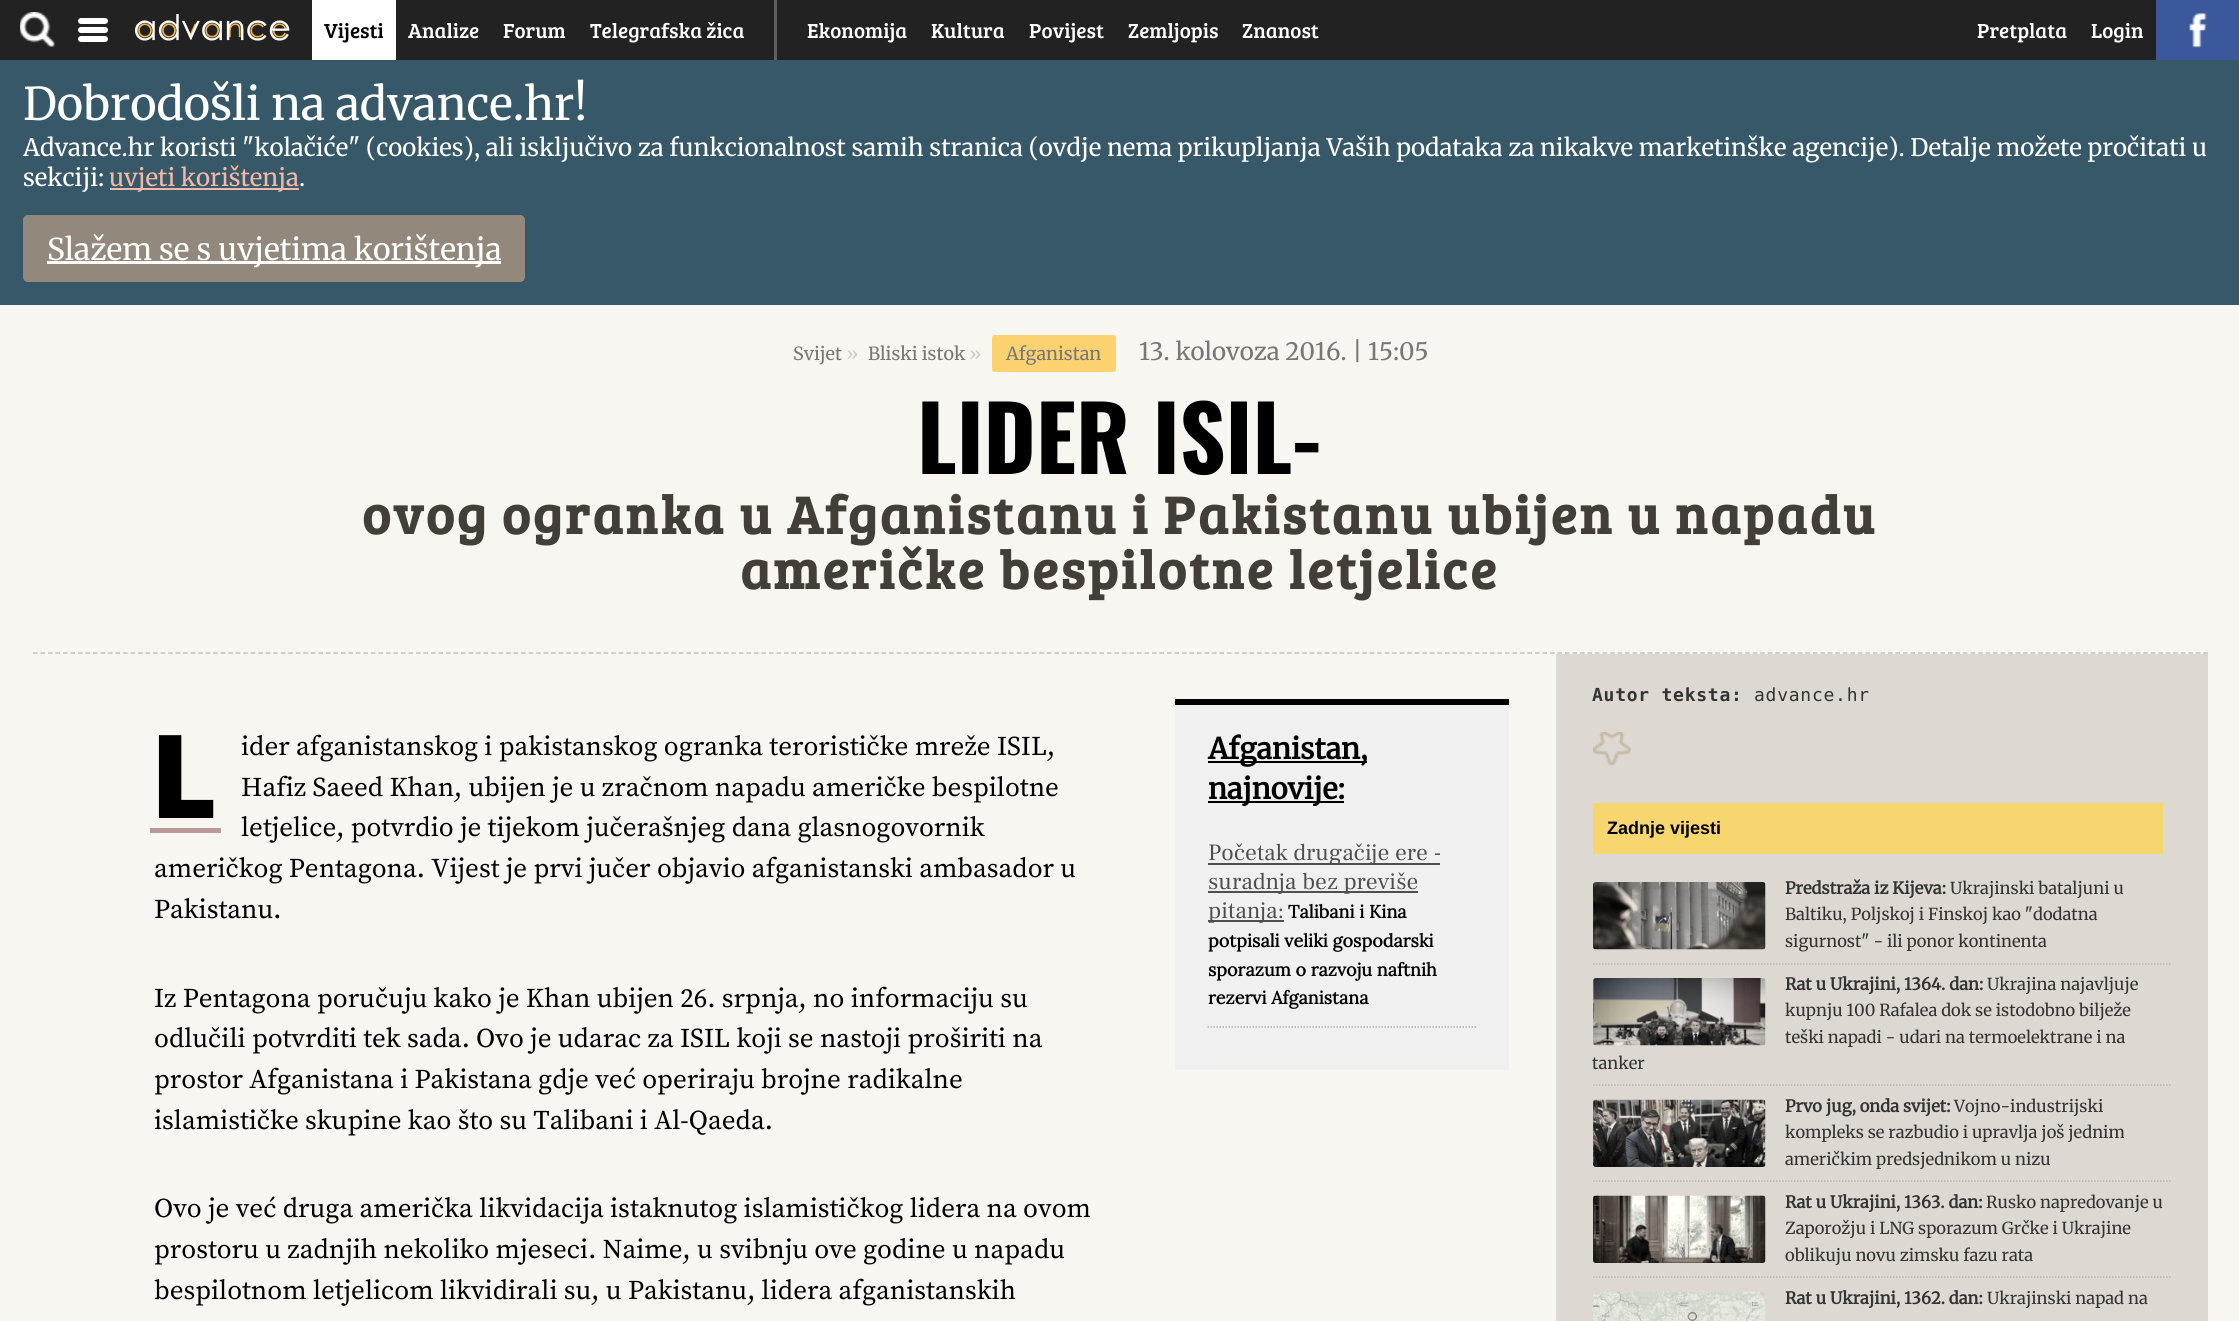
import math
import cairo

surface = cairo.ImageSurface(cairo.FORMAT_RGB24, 2239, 1321)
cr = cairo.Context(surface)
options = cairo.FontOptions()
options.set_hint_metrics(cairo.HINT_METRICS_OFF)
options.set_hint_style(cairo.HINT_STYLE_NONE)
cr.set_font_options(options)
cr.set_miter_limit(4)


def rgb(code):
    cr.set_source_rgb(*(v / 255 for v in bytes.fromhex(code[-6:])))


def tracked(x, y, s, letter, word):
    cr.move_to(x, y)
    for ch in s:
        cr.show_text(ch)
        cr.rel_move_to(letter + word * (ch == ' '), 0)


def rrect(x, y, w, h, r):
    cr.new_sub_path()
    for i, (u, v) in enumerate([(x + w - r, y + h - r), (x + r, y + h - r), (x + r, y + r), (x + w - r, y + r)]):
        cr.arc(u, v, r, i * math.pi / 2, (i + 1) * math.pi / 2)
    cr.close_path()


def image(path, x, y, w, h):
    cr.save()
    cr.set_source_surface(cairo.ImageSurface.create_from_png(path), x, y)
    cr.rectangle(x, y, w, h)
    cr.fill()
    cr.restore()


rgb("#f8f6f1")
cr.paint()
rgb("#222222")
cr.rectangle(0, 0, 2156, 60)
cr.fill()
image("img/1.png", 20, 12, 35, 35)
rgb("#ffffff")
rrect(78, 18, 30, 6, 3)
cr.fill()
rrect(78, 27, 30, 6, 3)
cr.fill()
rrect(78, 36, 30, 6, 3)
cr.fill()
image("img/2.png", 135, 14, 155, 27)
for x, y, w, h, color in [
    (312, 0, 84, 60, "#ffffff"),
    (774, 0, 3, 60, "#605f5f"),
    (2156, 0, 83, 60, "#3a589b"),
]:
    rgb(color)
    cr.rectangle(x, y, w, h)
    cr.fill()
image("img/3.png", 2189, 13, 18, 35)
rgb("#365869")
cr.rectangle(0, 60, 2239, 245)
cr.fill()
rgb("#f3b8a6")
cr.rectangle(110, 188, 189, 2)
cr.fill()
rgb("#92887c")
rrect(23, 215, 502, 67, 5)
cr.fill()
rgb("#ffffff")
cr.rectangle(47, 261, 454, 3)
cr.fill()
cr.new_path()
cr.move_to(33, 653)
cr.line_to(2208, 653)
rgb("#c0c0c0")
cr.set_line_width(1.5)
cr.set_dash([4.5, 3.01])
cr.stroke()
rgb("#fcd270")
rrect(992, 335, 124, 37, 3)
cr.fill()
for x, y, w, h, color in [
    (150, 828, 71, 5, "#bd9898"),
    (1175, 705, 334, 365, "#f0f0f0"),
    (1175, 699, 334, 6, "#000000"),
    (1208, 761, 159, 2, "#000000"),
    (1208, 801, 136, 2, "#000000"),
]:
    rgb(color)
    cr.rectangle(x, y, w, h)
    cr.fill()
cr.new_path()
cr.move_to(1207.5, 1027)
cr.line_to(1476, 1027)
rgb("#b0b0b0")
cr.set_dash([1.5, 1.5])
cr.stroke()
for x, y, w, h, color in [
    (1208, 863, 232, 2, "#4f4f4f"),
    (1208, 891, 210, 2, "#4f4f4f"),
    (1208, 920, 76, 2, "#4f4f4f"),
    (1556, 654, 652, 667, "#ddd8d2"),
]:
    rgb(color)
    cr.rectangle(x, y, w, h)
    cr.fill()
image("img/4.png", 1593, 732, 38, 34)
rgb("#f7d670")
cr.rectangle(1593, 803, 570, 51)
cr.fill()
cr.new_path()
cr.move_to(1593, 964)
cr.line_to(2170.5, 964)
rgb("#b9b9b9")
cr.stroke()
image("img/5.png", 1593, 882, 173, 68)
cr.new_path()
cr.move_to(1593, 1085)
cr.line_to(2170.5, 1085)
cr.stroke()
image("img/6.png", 1593, 978, 173, 68)
cr.new_path()
cr.move_to(1593, 1181)
cr.line_to(2170.5, 1181)
cr.stroke()
image("img/7.png", 1593, 1099, 173, 68)
cr.new_path()
cr.move_to(1593, 1277)
cr.line_to(2170.5, 1277)
cr.stroke()
image("img/8.png", 1593, 1195, 173, 68)
image("img/9.png", 1593, 1291, 173, 30)
cr.select_font_face("Bree Serif")
cr.set_font_size(21)
rgb("#000000")
cr.move_to(324, 38)
cr.show_text("Vijesti")
rgb("#ffffff")
for x, y, s in [
    (408, 38, "Analize"),
    (503, 38, "Forum"),
    (590, 38, "Telegrafska žica"),
    (807, 38, "Ekonomija"),
    (931, 38, "Kultura"),
    (1029, 38, "Povijest"),
    (1128, 38, "Zemljopis"),
    (1242, 38, "Znanost"),
    (1977, 38, "Pretplata"),
    (2091, 38, "Login"),
]:
    cr.move_to(x, y)
    cr.show_text(s)
cr.select_font_face("Merriweather Light")
cr.set_font_size(45)
cr.move_to(23, 120)
cr.show_text("Dobrodošli na advance.hr!")
cr.set_font_size(24)
cr.move_to(23, 156)
cr.show_text("Advance.hr koristi \"kolačiće\" (cookies), ali isključivo za funkcionalnost samih stranica (ovdje nema prikupljanja Vaših podataka za nikakve marketinške agencije). Detalje možete pročitati u")
cr.move_to(23, 186)
cr.show_text("sekciji:")
rgb("#f3b8a6")
cr.move_to(109, 186)
cr.show_text("uvjeti korištenja")
rgb("#ffffff")
cr.move_to(299, 186)
cr.show_text(".")
cr.set_font_size(30)
cr.move_to(47, 260)
cr.show_text("Slažem se s uvjetima korištenja")
cr.set_font_size(18)
rgb("#777777")
cr.move_to(793, 360)
cr.show_text("Svijet")
rgb("#cccccc")
cr.move_to(846, 360)
cr.show_text("»")
rgb("#777777")
cr.move_to(868, 360)
cr.show_text("Bliski istok")
rgb("#cccccc")
cr.move_to(969, 360)
cr.show_text("»")
rgb("#777777")
cr.move_to(1006, 360)
cr.show_text("Afganistan")
cr.set_font_size(24)
cr.move_to(1139, 360)
cr.show_text("13. kolovoza 2016. | 15:05")
cr.select_font_face("Oswald", cairo.FONT_SLANT_NORMAL, cairo.FONT_WEIGHT_BOLD)
cr.set_font_size(89.5)
rgb("#000000")
cr.move_to(917, 474)
cr.show_text("LIDER ISIL-")
cr.select_font_face("Bree Serif", cairo.FONT_SLANT_NORMAL, cairo.FONT_WEIGHT_BOLD)
cr.set_font_size(53.9)
rgb("#433f38")
tracked(362, 534, "ovog ogranka u Afganistanu i Pakistanu ubijen u napadu", 2.55, 0)
tracked(740, 589, "američke bespilotne letjelice", 2.55, 0)
cr.select_font_face("Noto Sans Black")
cr.set_font_size(116)
rgb("#000000")
cr.move_to(150, 818)
cr.show_text("L")
cr.select_font_face("Source Serif Pro")
cr.set_font_size(27.1)
for x, y, s in [
    (241, 755, "ider afganistanskog i pakistanskog ogranka terorističke mreže ISIL,"),
    (241, 796, "Hafiz Saeed Khan, ubijen je u zračnom napadu američke bespilotne"),
    (241, 836, "letjelice, potvrdio je tijekom jučerašnjeg dana glasnogovornik"),
    (154, 877, "američkog Pentagona. Vijest je prvi jučer objavio afganistanski ambasador u"),
    (154, 918, "Pakistanu."),
    (154, 1007, "Iz Pentagona poručuju kako je Khan ubijen 26. srpnja, no informaciju su"),
    (154, 1047, "odlučili potvrditi tek sada. Ovo je udarac za ISIL koji se nastoji proširiti na"),
    (154, 1088, "prostor Afganistana i Pakistana gdje već operiraju brojne radikalne"),
    (154, 1129, "islamističke skupine kao što su Talibani i Al-Qaeda."),
    (154, 1217, "Ovo je već druga američka likvidacija istaknutog islamističkog lidera na ovom"),
    (154, 1258, "prostoru u zadnjih nekoliko mjeseci. Naime, u svibnju ove godine u napadu"),
    (154, 1299, "bespilotnom letjelicom likvidirali su, u Pakistanu, lidera afganistanskih"),
]:
    cr.move_to(x, y)
    cr.show_text(s)
cr.select_font_face("Merriweather", cairo.FONT_SLANT_NORMAL, cairo.FONT_WEIGHT_BOLD)
cr.set_font_size(28.75)
cr.move_to(1208, 759)
cr.show_text("Afganistan,")
cr.move_to(1208, 799)
cr.show_text("najnovije:")
cr.select_font_face("Frank Ruhl Libre")
cr.set_font_size(23.4)
rgb("#4f4f4f")
for x, y, s in [
    (1208, 860, "Početak drugačije ere -"),
    (1208, 889, "suradnja bez previše"),
    (1208, 918, "pitanja:"),
]:
    cr.move_to(x, y)
    cr.show_text(s)
cr.select_font_face("Lora", cairo.FONT_SLANT_NORMAL, cairo.FONT_WEIGHT_BOLD)
cr.set_font_size(18)
rgb("#000000")
for x, y, s in [
    (1288, 918, "Talibani i Kina"),
    (1208, 947, "potpisali veliki gospodarski"),
    (1208, 976, "sporazum o razvoju naftnih"),
    (1208, 1004, "rezervi Afganistana"),
]:
    cr.move_to(x, y)
    cr.show_text(s)
cr.select_font_face("DejaVu Sans Mono", cairo.FONT_SLANT_NORMAL, cairo.FONT_WEIGHT_BOLD)
rgb("#333333")
tracked(1592, 701, "Autor teksta:", 0.75, 0)
cr.select_font_face("DejaVu Sans Mono")
tracked(1754, 701, "advance.hr", 0.75, 0)
cr.select_font_face("Liberation Sans", cairo.FONT_SLANT_NORMAL, cairo.FONT_WEIGHT_BOLD)
rgb("#000000")
cr.move_to(1607, 834)
cr.show_text("Zadnje vijesti")
cr.select_font_face("Merriweather", cairo.FONT_SLANT_NORMAL, cairo.FONT_WEIGHT_BOLD)
cr.set_font_size(16.5)
rgb("#333333")
cr.move_to(1785, 894)
cr.show_text("Predstraža iz Kijeva:")
cr.select_font_face("Merriweather Light")
for x, y, s in [
    (1950, 894, "Ukrajinski bataljuni u"),
    (1785, 920, "Baltiku, Poljskoj i Finskoj kao \"dodatna"),
    (1785, 947, "sigurnost\" - ili ponor kontinenta"),
]:
    cr.move_to(x, y)
    cr.show_text(s)
cr.select_font_face("Merriweather", cairo.FONT_SLANT_NORMAL, cairo.FONT_WEIGHT_BOLD)
cr.move_to(1785, 990)
cr.show_text("Rat u Ukrajini, 1364. dan:")
cr.select_font_face("Merriweather Light")
for x, y, s in [
    (1987, 990, "Ukrajina najavljuje"),
    (1785, 1016, "kupnju 100 Rafalea dok se istodobno bilježe"),
    (1785, 1043, "teški napadi - udari na termoelektrane i na"),
    (1592, 1069, "tanker"),
]:
    cr.move_to(x, y)
    cr.show_text(s)
cr.select_font_face("Merriweather", cairo.FONT_SLANT_NORMAL, cairo.FONT_WEIGHT_BOLD)
cr.move_to(1785, 1112)
cr.show_text("Prvo jug, onda svijet:")
cr.select_font_face("Merriweather Light")
for x, y, s in [
    (1954, 1112, "Vojno-industrijski"),
    (1785, 1138, "kompleks se razbudio i upravlja još jednim"),
    (1785, 1165, "američkim predsjednikom u nizu"),
]:
    cr.move_to(x, y)
    cr.show_text(s)
cr.select_font_face("Merriweather", cairo.FONT_SLANT_NORMAL, cairo.FONT_WEIGHT_BOLD)
cr.move_to(1785, 1208)
cr.show_text("Rat u Ukrajini, 1363. dan:")
cr.select_font_face("Merriweather Light")
for x, y, s in [
    (1986, 1208, "Rusko napredovanje u"),
    (1785, 1234, "Zaporožju i LNG sporazum Grčke i Ukrajine"),
    (1785, 1261, "oblikuju novu zimsku fazu rata"),
]:
    cr.move_to(x, y)
    cr.show_text(s)
cr.select_font_face("Merriweather", cairo.FONT_SLANT_NORMAL, cairo.FONT_WEIGHT_BOLD)
cr.move_to(1785, 1304)
cr.show_text("Rat u Ukrajini, 1362. dan:")
cr.select_font_face("Merriweather Light")
cr.move_to(1987, 1304)
cr.show_text("Ukrajinski napad na")
surface.write_to_png("page.png")
